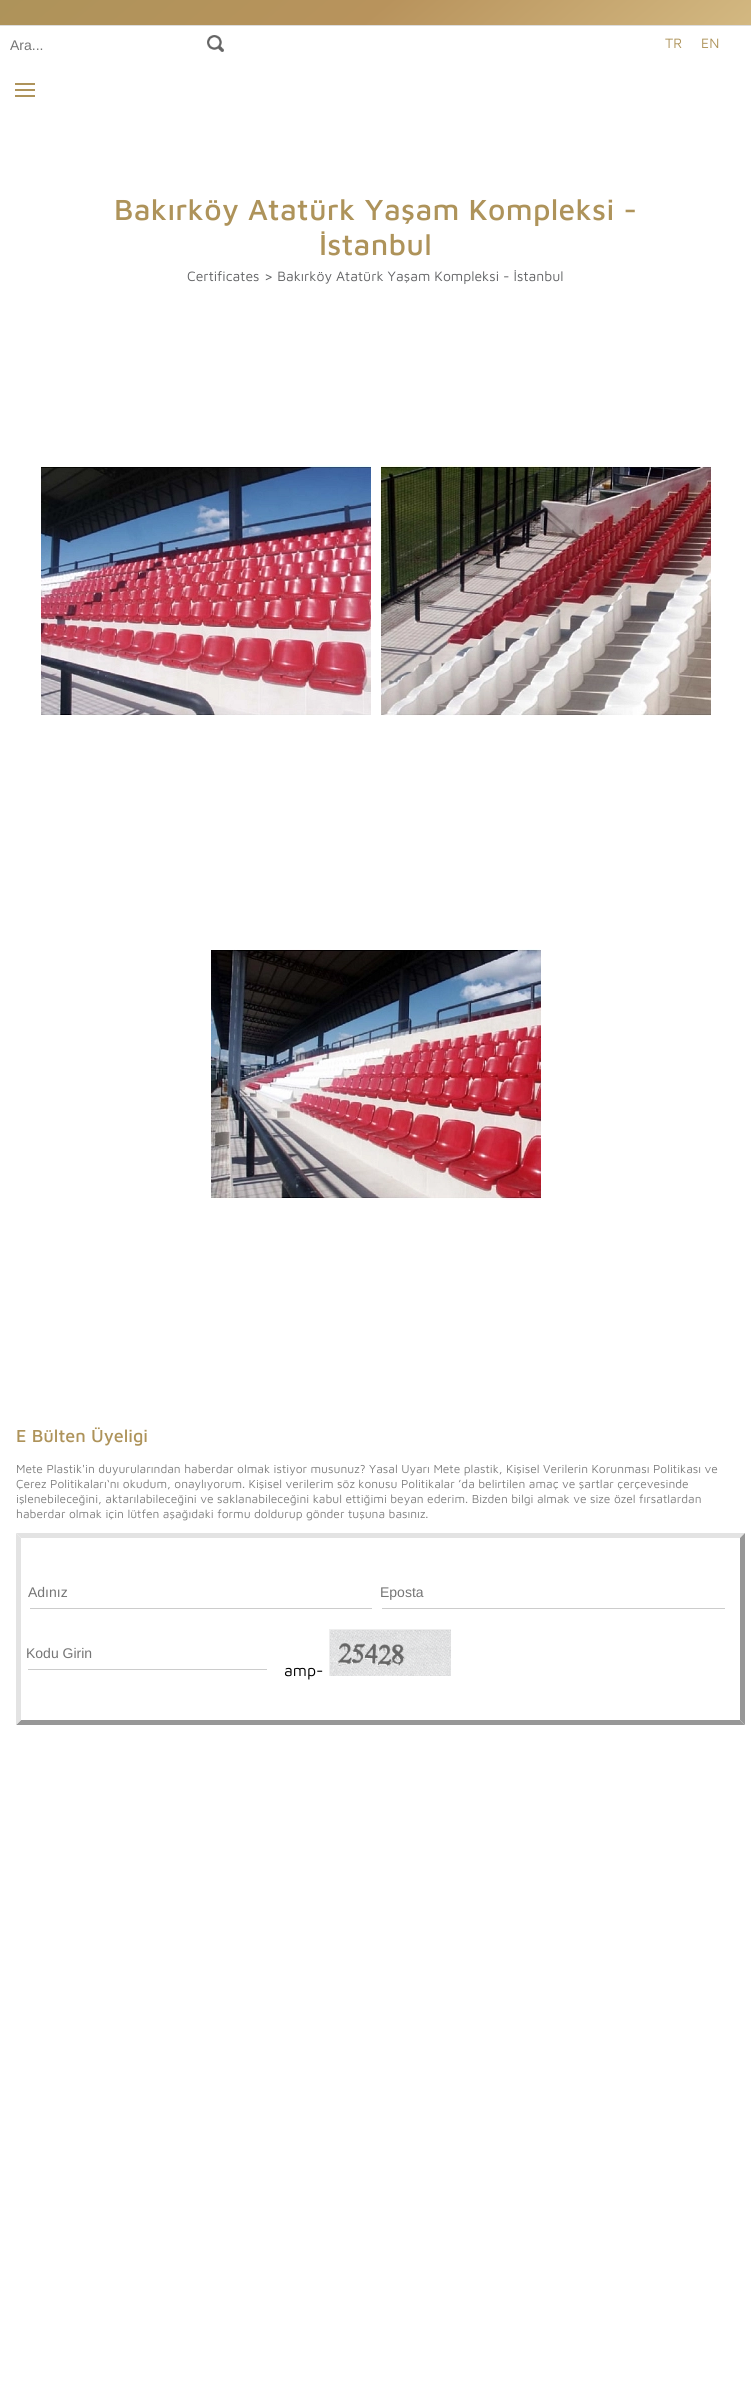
import math
import cairo

surface = cairo.ImageSurface(cairo.FORMAT_RGB24, 751, 2394)
cr = cairo.Context(surface)
options = cairo.FontOptions()
options.set_hint_metrics(cairo.HINT_METRICS_OFF)
options.set_hint_style(cairo.HINT_STYLE_NONE)
cr.set_font_options(options)
cr.set_miter_limit(4)


def rgb(code):
    cr.set_source_rgb(*(v / 255 for v in bytes.fromhex(code[-6:])))


def tracked(x, y, s, letter, word):
    cr.move_to(x, y)
    for ch in s:
        cr.show_text(ch)
        cr.rel_move_to(letter + word * (ch == ' '), 0)


def image(path, x, y, w, h):
    cr.save()
    cr.set_source_surface(cairo.ImageSurface.create_from_png(path), x, y)
    cr.rectangle(x, y, w, h)
    cr.fill()
    cr.restore()


rgb("#ffffff")
cr.paint()
gradient = cairo.LinearGradient(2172, 898, 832, -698)
gradient.add_color_stop_rgba(0, 0.839, 0.714, 0.427, 1)
gradient.add_color_stop_rgba(0.12, 0.925, 0.855, 0.584, 1)
gradient.add_color_stop_rgba(0.25, 0.765, 0.635, 0.357, 1)
gradient.add_color_stop_rgba(0.38, 0.839, 0.718, 0.424, 1)
gradient.add_color_stop_rgba(0.5, 0.682, 0.576, 0.353, 1)
gradient.add_color_stop_rgba(0.62, 0.404, 0.235, 0.063, 1)
gradient.add_color_stop_rgba(0.75, 0.835, 0.733, 0.518, 1)
gradient.add_color_stop_rgba(0.88, 0.722, 0.576, 0.361, 1)
gradient.add_color_stop_rgba(1, 0.682, 0.576, 0.353, 1)
cr.set_source(gradient)
cr.rectangle(0, 0, 751, 25)
cr.fill()
rgb("#dddddd")
cr.rectangle(0, 25, 751, 1)
cr.fill()
image("img/1.png", 207, 35, 17, 17)
for x, y, w, h, color in [
    (15, 89, 20, 2, "#ae935a"),
    (15, 83, 20, 2, "#ae935a"),
    (15, 95, 20, 2, "#ae935a"),
]:
    rgb(color)
    cr.rectangle(x, y, w, h)
    cr.fill()
image("img/2.png", 41, 465, 330, 250)
image("img/3.png", 381, 465, 330, 251)
image("img/4.png", 211, 949, 330, 251)
rgb("#e3e3e3")
cr.new_path()
cr.move_to(16, 1533)
cr.line_to(745, 1533)
cr.line_to(740, 1538)
cr.line_to(21, 1538)
cr.close_path()
cr.fill()
rgb("#979797")
cr.new_path()
cr.move_to(745, 1533)
cr.line_to(745, 1725)
cr.line_to(740, 1720)
cr.line_to(740, 1538)
cr.close_path()
cr.fill()
cr.new_path()
cr.move_to(745, 1725)
cr.line_to(16, 1725)
cr.line_to(21, 1720)
cr.line_to(740, 1720)
cr.close_path()
cr.fill()
rgb("#e3e3e3")
cr.new_path()
cr.move_to(16, 1725)
cr.line_to(16, 1533)
cr.line_to(21, 1538)
cr.line_to(21, 1720)
cr.close_path()
cr.fill()
for x, y, w, h, color in [
    (30, 1608, 342, 1, "#cccccc"),
    (382, 1608, 343, 1, "#cccccc"),
    (28, 1669, 239, 1, "#cccccc"),
]:
    rgb(color)
    cr.rectangle(x, y, w, h)
    cr.fill()
image("img/5.png", 329, 1629, 122, 47)
cr.select_font_face("Liberation Sans")
cr.set_font_size(14)
rgb("#757575")
cr.move_to(10, 50)
cr.show_text("Ara...")
cr.select_font_face("Maven Pro")
rgb("#ae935a")
cr.move_to(665, 48)
cr.show_text("TR")
cr.move_to(701, 48)
cr.show_text("EN")
cr.select_font_face("Maven Pro Medium")
cr.set_font_size(30)
tracked(114, 220, "Bakırköy Atatürk Yaşam Kompleksi -", 0.3, 0)
tracked(319, 255, "İstanbul", 0.3, 0)
cr.select_font_face("Maven Pro")
cr.set_font_size(14)
rgb("#636466")
cr.move_to(187, 281)
cr.show_text("Certificates")
cr.move_to(264, 281)
cr.show_text("> Bakırköy Atatürk Yaşam Kompleksi - İstanbul")
cr.select_font_face("Maven Pro Medium")
cr.set_font_size(18)
rgb("#ae935a")
cr.move_to(16, 1442)
cr.show_text("E Bülten Üyeligi")
cr.select_font_face("Maven Pro")
cr.set_font_size(12)
rgb("#808080")
for x, y, s in [
    (16, 1473, "Mete Plastik'in duyurularından haberdar olmak istiyor musunuz? Yasal Uyarı Mete plastik, Kişisel Verilerin Korunması Politikası ve"),
    (16, 1488, "Çerez Politikaları‘nı okudum, onaylıyorum. Kişisel verilerim söz konusu Politikalar ’da belirtilen amaç ve şartlar çerçevesinde"),
    (16, 1503, "işlenebileceğini, aktarılabileceğini ve saklanabileceğini kabul ettiğimi beyan ederim. Bizden bilgi almak ve size özel fırsatlardan"),
    (16, 1518, "haberdar olmak için lütfen aşağıdaki formu doldurup gönder tuşuna basınız."),
]:
    cr.move_to(x, y)
    cr.show_text(s)
cr.select_font_face("Liberation Sans")
cr.set_font_size(14)
rgb("#757575")
for x, y, s in [
    (28, 1597, "Adınız"),
    (380, 1597, "Eposta"),
    (26, 1658, "Kodu Girin"),
]:
    cr.move_to(x, y)
    cr.show_text(s)
cr.select_font_face("Maven Pro")
cr.set_font_size(16)
rgb("#000000")
cr.move_to(284, 1676)
cr.show_text("amp-")
surface.write_to_png("page.png")
